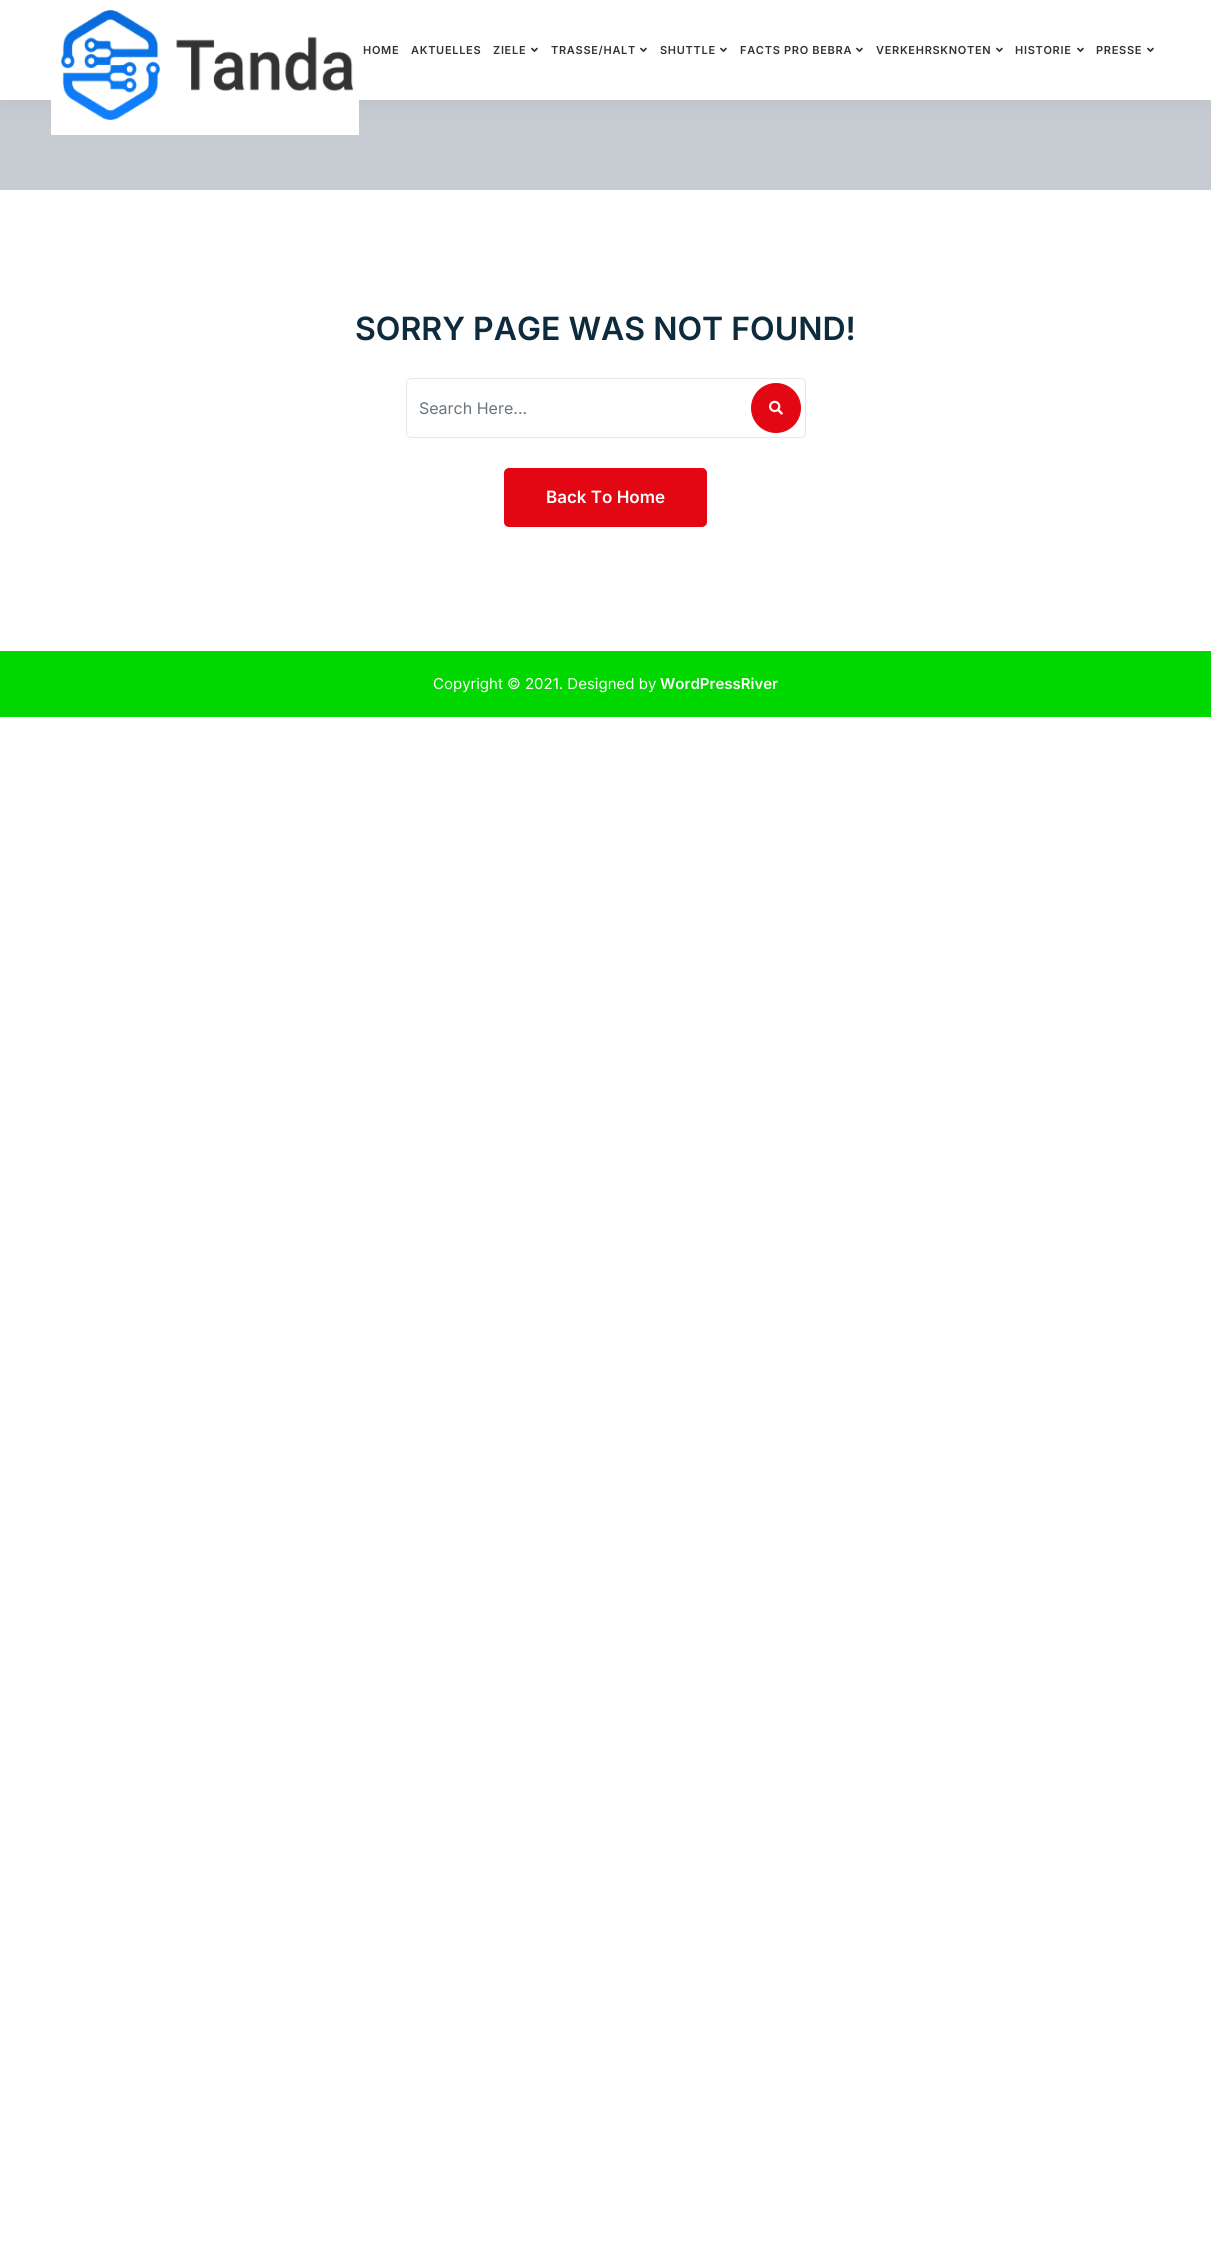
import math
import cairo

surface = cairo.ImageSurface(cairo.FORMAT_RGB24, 1211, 2244)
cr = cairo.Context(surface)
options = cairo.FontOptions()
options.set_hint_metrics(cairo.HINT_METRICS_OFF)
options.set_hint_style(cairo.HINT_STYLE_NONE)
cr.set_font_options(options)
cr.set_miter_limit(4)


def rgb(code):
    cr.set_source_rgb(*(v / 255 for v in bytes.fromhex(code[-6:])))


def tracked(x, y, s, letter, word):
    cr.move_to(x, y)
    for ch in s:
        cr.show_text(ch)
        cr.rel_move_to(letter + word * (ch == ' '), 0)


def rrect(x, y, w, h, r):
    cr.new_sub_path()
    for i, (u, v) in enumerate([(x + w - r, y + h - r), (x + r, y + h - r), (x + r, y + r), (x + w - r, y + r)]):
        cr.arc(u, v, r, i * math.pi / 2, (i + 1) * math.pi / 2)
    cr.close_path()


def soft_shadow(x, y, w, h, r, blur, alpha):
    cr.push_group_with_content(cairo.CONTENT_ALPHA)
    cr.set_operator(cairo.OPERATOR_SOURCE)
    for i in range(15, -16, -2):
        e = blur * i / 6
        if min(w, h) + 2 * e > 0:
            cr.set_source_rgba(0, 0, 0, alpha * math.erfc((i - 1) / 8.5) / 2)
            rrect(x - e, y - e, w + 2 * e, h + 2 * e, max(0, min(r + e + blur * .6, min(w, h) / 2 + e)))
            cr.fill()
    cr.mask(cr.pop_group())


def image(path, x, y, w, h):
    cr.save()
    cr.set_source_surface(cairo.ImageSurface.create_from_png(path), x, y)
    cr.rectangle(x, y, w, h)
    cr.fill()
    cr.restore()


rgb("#ffffff")
cr.paint()
rgb("#c7ccd2")
cr.rectangle(0, 100, 1211, 90)
cr.fill()
rgb("#000000")
soft_shadow(0, 8, 1211, 100, 0, 12.5, 0.04)
rgb("#ffffff")
cr.rectangle(0, 0, 1211, 100)
cr.fill()
cr.rectangle(51, 100, 308, 35)
cr.fill()
image("img/1.png", 61, 10, 293, 110)
image("img/2.png", 531, 47, 7, 5)
image("img/2.png", 640, 47, 7, 5)
image("img/2.png", 720, 47, 7, 5)
image("img/2.png", 856, 47, 7, 5)
image("img/2.png", 996, 47, 7, 5)
image("img/2.png", 1077, 47, 7, 5)
image("img/2.png", 1147, 47, 7, 5)
rrect(406.5, 378.5, 399, 59, 4.5)
rgb("#e7e7e7")
cr.set_line_width(1)
cr.stroke()
rgb("#e30613")
cr.arc(776, 408, 25, 0, 2 * math.pi)
cr.fill()
image("img/3.png", 769, 400, 14, 15)
rrect(505, 469, 201, 57, 4)
cr.fill_preserve()
cr.set_line_width(2)
cr.stroke()
rgb("#00d800")
cr.rectangle(0, 651, 1211, 66)
cr.fill()
cr.select_font_face("Inter SemiBold")
cr.set_font_size(11)
rgb("#333333")
for x, y, s in [
    (363, 54, "HOME"),
    (411, 54, "AKTUELLES"),
    (493, 54, "ZIELE"),
    (551, 54, "TRASSE/HALT"),
    (660, 54, "SHUTTLE"),
    (740, 54, "FACTS PRO BEBRA"),
    (876, 54, "VERKEHRSKNOTEN"),
    (1015, 54, "HISTORIE"),
    (1096, 54, "PRESSE"),
]:
    tracked(x, y, s, 0.7, 0)
cr.set_font_size(32)
rgb("#0e2b3d")
cr.move_to(355, 340)
cr.show_text("SORRY PAGE WAS NOT FOUND!")
cr.select_font_face("Inter")
cr.set_font_size(16)
rgb("#6c757d")
cr.move_to(419, 414)
cr.show_text("Search Here...")
cr.select_font_face("Inter SemiBold")
cr.set_font_size(17)
rgb("#ffffff")
cr.move_to(546, 503)
cr.show_text("Back To Home")
cr.select_font_face("Inter")
cr.set_font_size(15)
cr.move_to(433, 689)
cr.show_text("Copyright © 2021. Designed by")
cr.select_font_face("Inter SemiBold")
cr.move_to(660, 689)
cr.show_text("WordPressRiver")
surface.write_to_png("page.png")
